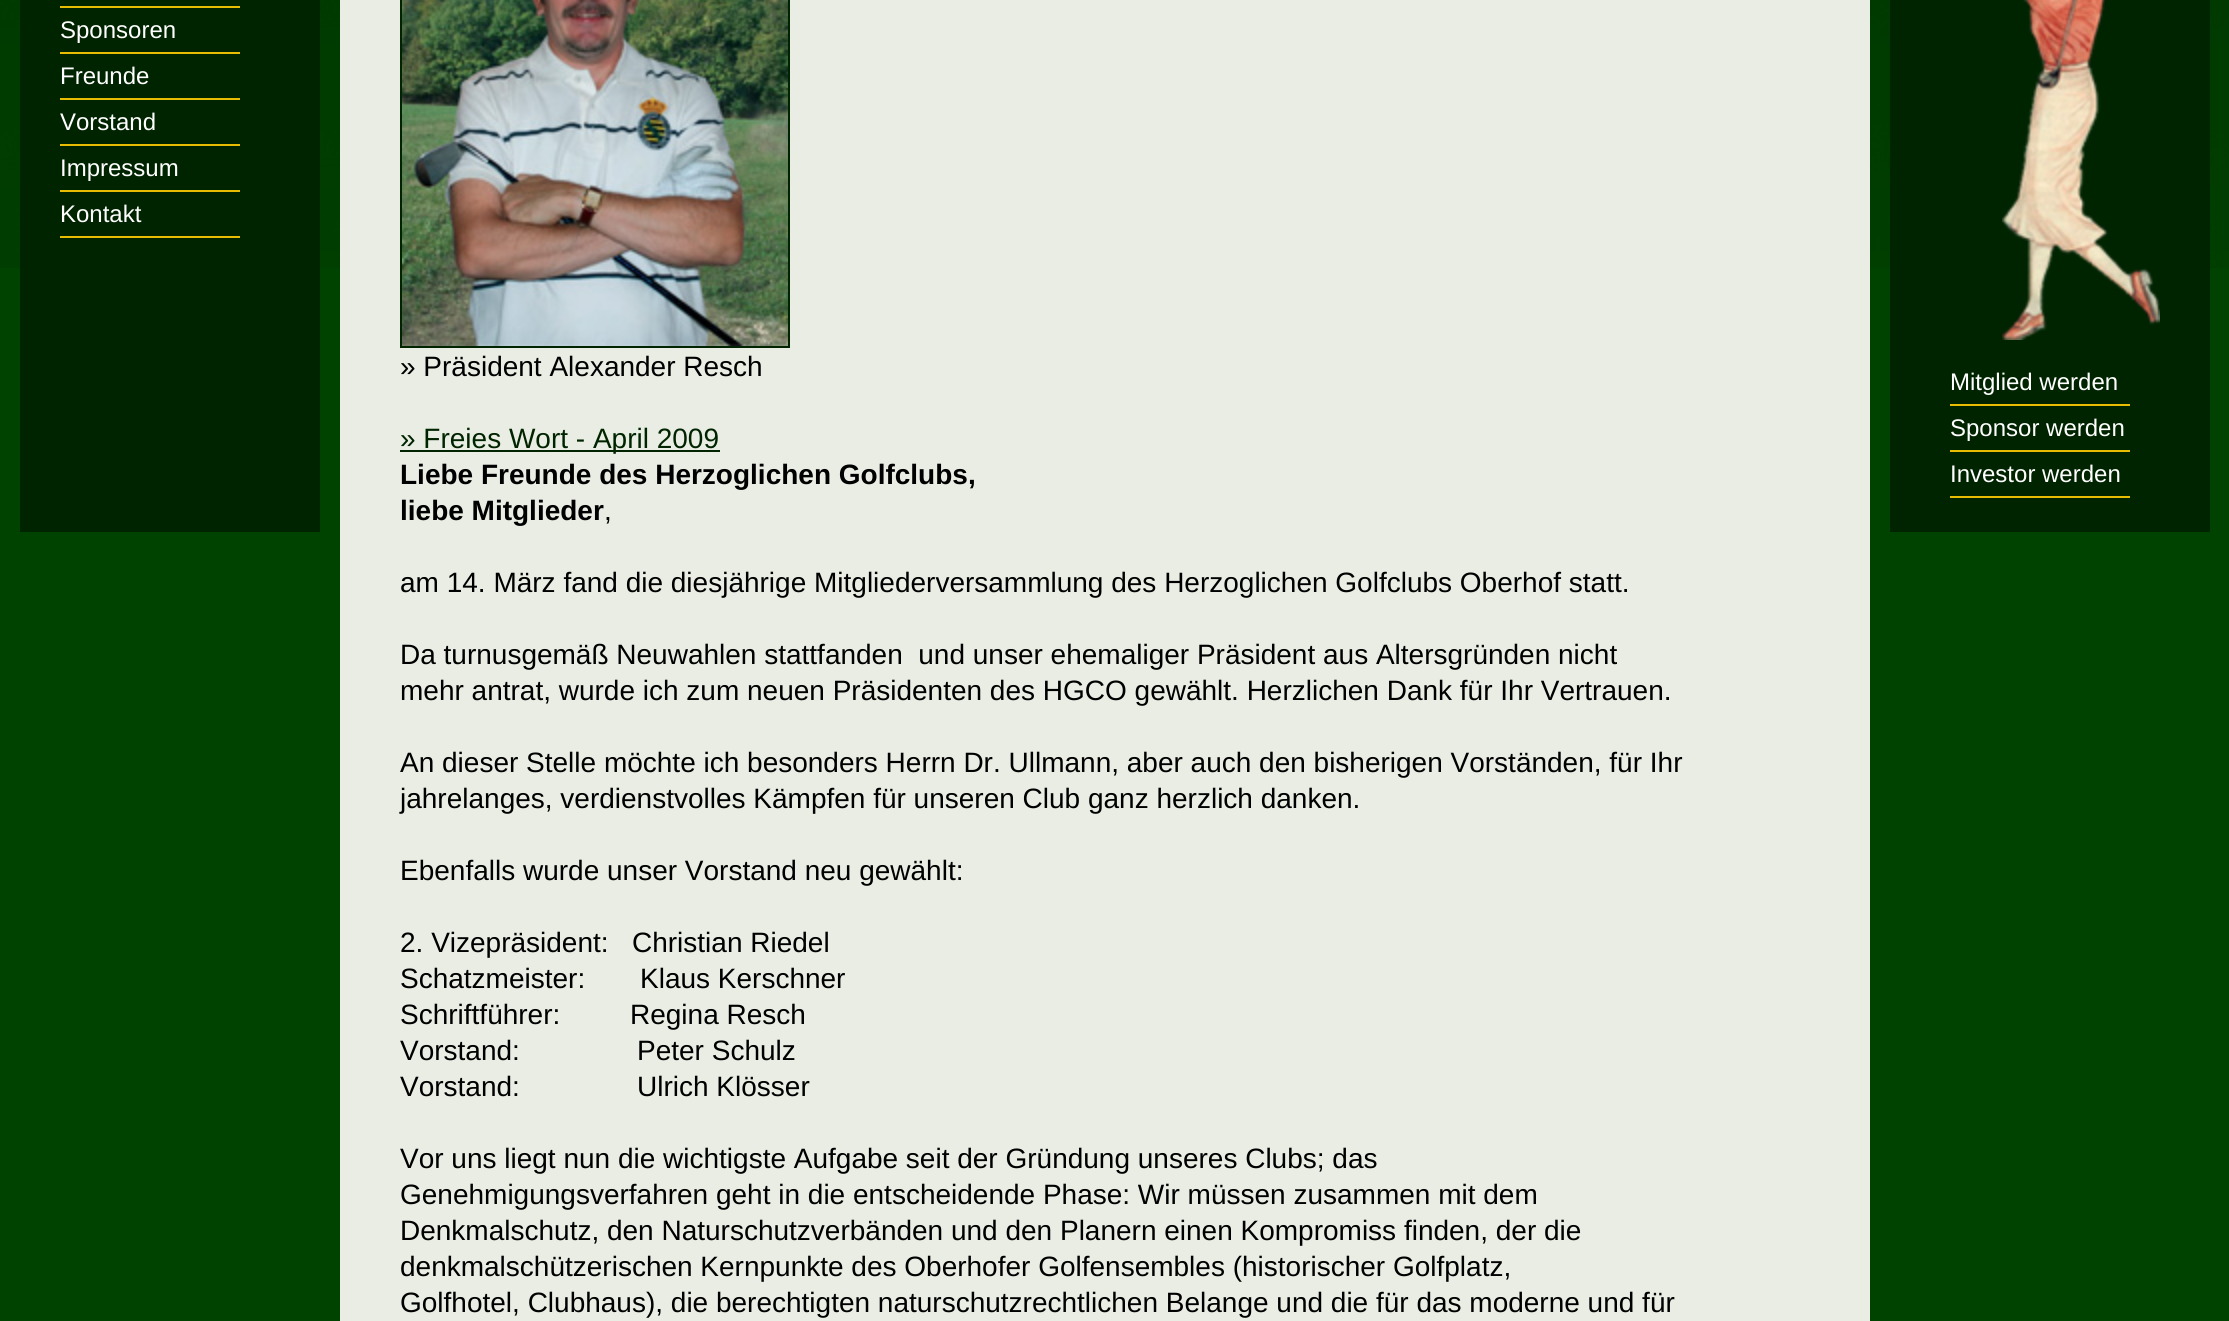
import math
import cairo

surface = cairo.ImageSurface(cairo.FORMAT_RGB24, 2229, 1321)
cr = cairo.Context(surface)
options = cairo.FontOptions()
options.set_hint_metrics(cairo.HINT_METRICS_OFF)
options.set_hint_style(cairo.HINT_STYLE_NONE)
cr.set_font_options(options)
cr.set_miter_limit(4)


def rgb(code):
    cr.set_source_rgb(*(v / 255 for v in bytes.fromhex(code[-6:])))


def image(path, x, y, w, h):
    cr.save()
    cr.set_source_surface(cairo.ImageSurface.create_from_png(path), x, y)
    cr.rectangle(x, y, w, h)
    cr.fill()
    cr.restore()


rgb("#004200")
cr.paint()
image("img/1.png", 0, 0, 2229, 268)
for x, y, w, h, color in [
    (20, 0, 300, 532, "#002400"),
    (60, 6, 180, 2, "#e6bd00"),
    (60, 52, 180, 2, "#e6bd00"),
    (60, 98, 180, 2, "#e6bd00"),
    (60, 144, 180, 2, "#e6bd00"),
    (60, 190, 180, 2, "#e6bd00"),
    (60, 236, 180, 2, "#e6bd00"),
    (340, 0, 1530, 1321, "#e9ede3"),
]:
    rgb(color)
    cr.rectangle(x, y, w, h)
    cr.fill()
cr.rectangle(401, -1, 388, 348)
rgb("#002400")
cr.stroke()
image("img/2.png", 402, 0, 386, 346)
cr.rectangle(400, 450, 320, 2)
cr.fill()
cr.rectangle(1890, 0, 320, 532)
cr.fill()
image("img/3.png", 2002, 0, 158, 340)
for x, y, w, h, color in [
    (1950, 404, 180, 2, "#e6bd00"),
    (1950, 450, 180, 2, "#e6bd00"),
    (1950, 496, 180, 2, "#e6bd00"),
]:
    rgb(color)
    cr.rectangle(x, y, w, h)
    cr.fill()
cr.select_font_face("Liberation Sans")
cr.set_font_size(24)
rgb("#ffffff")
for x, y, s in [
    (60, 38, "Sponsoren"),
    (60, 84, "Freunde"),
    (60, 130, "Vorstand"),
    (60, 176, "Impressum"),
    (60, 222, "Kontakt"),
]:
    cr.move_to(x, y)
    cr.show_text(s)
cr.set_font_size(28)
rgb("#000000")
cr.move_to(400, 376)
cr.show_text("» Präsident Alexander Resch")
rgb("#002400")
cr.move_to(400, 448)
cr.show_text("» Freies Wort - April 2009")
cr.select_font_face("Liberation Sans", cairo.FONT_SLANT_NORMAL, cairo.FONT_WEIGHT_BOLD)
rgb("#000000")
cr.move_to(400, 484)
cr.show_text("Liebe Freunde des Herzoglichen Golfclubs,")
cr.move_to(400, 520)
cr.show_text("liebe Mitglieder")
cr.select_font_face("Liberation Sans")
for x, y, s in [
    (604, 520, ","),
    (400, 592, "am 14. März fand die diesjährige Mitgliederversammlung des Herzoglichen Golfclubs Oberhof statt."),
    (400, 664, "Da turnusgemäß Neuwahlen stattfanden  und unser ehemaliger Präsident aus Altersgründen nicht"),
    (400, 700, "mehr antrat, wurde ich zum neuen Präsidenten des HGCO gewählt. Herzlichen Dank für Ihr Vertrauen."),
    (400, 772, "An dieser Stelle möchte ich besonders Herrn Dr. Ullmann, aber auch den bisherigen Vorständen, für Ihr"),
    (400, 808, "jahrelanges, verdienstvolles Kämpfen für unseren Club ganz herzlich danken."),
    (400, 880, "Ebenfalls wurde unser Vorstand neu gewählt:"),
    (400, 952, "2. Vizepräsident:"),
    (632, 952, "Christian Riedel"),
    (400, 988, "Schatzmeister:"),
    (640, 988, "Klaus Kerschner"),
    (400, 1024, "Schriftführer:"),
    (630, 1024, "Regina Resch"),
    (400, 1060, "Vorstand:"),
    (637, 1060, "Peter Schulz"),
    (400, 1096, "Vorstand:"),
    (637, 1096, "Ulrich Klösser"),
    (400, 1168, "Vor uns liegt nun die wichtigste Aufgabe seit der Gründung unseres Clubs; das"),
    (400, 1204, "Genehmigungsverfahren geht in die entscheidende Phase: Wir müssen zusammen mit dem"),
    (400, 1240, "Denkmalschutz, den Naturschutzverbänden und den Planern einen Kompromiss finden, der die"),
    (400, 1276, "denkmalschützerischen Kernpunkte des Oberhofer Golfensembles (historischer Golfplatz,"),
    (400, 1312, "Golfhotel, Clubhaus), die berechtigten naturschutzrechtlichen Belange und die für das moderne und für"),
]:
    cr.move_to(x, y)
    cr.show_text(s)
cr.set_font_size(24)
rgb("#ffffff")
for x, y, s in [
    (1950, 390, "Mitglied werden"),
    (1950, 436, "Sponsor werden"),
    (1950, 482, "Investor werden"),
]:
    cr.move_to(x, y)
    cr.show_text(s)
surface.write_to_png("page.png")
